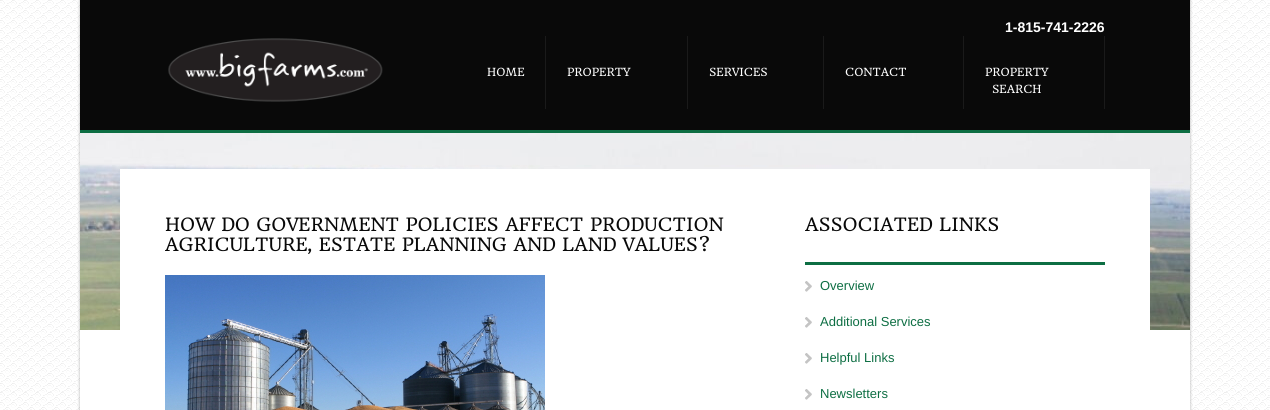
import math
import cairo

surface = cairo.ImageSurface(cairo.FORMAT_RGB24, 1270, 410)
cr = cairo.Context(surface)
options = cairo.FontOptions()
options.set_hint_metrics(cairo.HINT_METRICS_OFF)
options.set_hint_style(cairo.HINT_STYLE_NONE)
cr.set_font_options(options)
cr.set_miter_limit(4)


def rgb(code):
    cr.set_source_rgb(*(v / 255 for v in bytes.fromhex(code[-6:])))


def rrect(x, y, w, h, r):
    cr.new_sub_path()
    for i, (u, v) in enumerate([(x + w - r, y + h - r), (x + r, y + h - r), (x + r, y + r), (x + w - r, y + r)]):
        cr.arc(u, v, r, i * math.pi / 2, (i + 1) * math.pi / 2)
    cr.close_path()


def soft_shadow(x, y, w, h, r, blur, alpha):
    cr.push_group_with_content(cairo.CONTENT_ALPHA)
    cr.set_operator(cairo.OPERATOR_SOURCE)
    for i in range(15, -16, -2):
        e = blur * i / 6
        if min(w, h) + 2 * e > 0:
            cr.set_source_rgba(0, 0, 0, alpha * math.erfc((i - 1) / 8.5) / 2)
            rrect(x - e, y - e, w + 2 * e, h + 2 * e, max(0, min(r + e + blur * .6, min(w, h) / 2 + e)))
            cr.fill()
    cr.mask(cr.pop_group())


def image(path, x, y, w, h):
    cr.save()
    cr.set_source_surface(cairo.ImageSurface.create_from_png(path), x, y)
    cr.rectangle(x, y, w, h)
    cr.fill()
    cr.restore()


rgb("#ffffff")
cr.paint()
image("img/1.png", 0, 0, 1270, 410)
rgb("#000000")
soft_shadow(80, 0, 1110, 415, 0, 1.5, 0.3)
for x, y, w, h, color in [
    (80, 330, 1110, 80, "#ffffff"),
    (80, 0, 1110, 130, "#090909"),
    (80, 130, 1110, 3, "#0d6e43"),
]:
    rgb(color)
    cr.rectangle(x, y, w, h)
    cr.fill()
image("img/2.png", 168, 38, 215, 64)
for x, y, w, h, color in [
    (545, 36, 1, 73, "#1a1a1a"),
    (687, 36, 1, 73, "#1a1a1a"),
    (823, 36, 1, 73, "#1a1a1a"),
    (963, 36, 1, 73, "#1a1a1a"),
    (1104, 36, 1, 73, "#1a1a1a"),
]:
    rgb(color)
    cr.rectangle(x, y, w, h)
    cr.fill()
image("img/3.png", 80, 133, 1110, 197)
rgb("#ffffff")
cr.rectangle(120, 169, 1030, 161)
cr.fill()
image("img/4.png", 165, 275, 380, 135)
rgb("#0d6e43")
cr.rectangle(805, 262, 300, 3)
cr.fill()
image("img/5.png", 805, 281, 7, 11)
image("img/5.png", 805, 317, 7, 11)
image("img/5.png", 805, 353, 7, 11)
image("img/5.png", 805, 389, 7, 11)
cr.select_font_face("Liberation Sans", cairo.FONT_SLANT_NORMAL, cairo.FONT_WEIGHT_BOLD)
cr.set_font_size(14)
rgb("#ffffff")
cr.move_to(1005, 32)
cr.show_text("1-815-741-2226")
cr.select_font_face("HeadlandOne")
cr.set_font_size(11)
for x, y, s in [
    (487, 76, "HOME"),
    (567, 76, "PROPERTY"),
    (709, 76, "SERVICES"),
    (845, 76, "CONTACT"),
    (985, 76, "PROPERTY"),
    (992, 93, "SEARCH"),
]:
    cr.move_to(x, y)
    cr.show_text(s)
cr.set_font_size(18)
rgb("#090909")
for x, y, s in [
    (165, 231, "HOW DO GOVERNMENT POLICIES AFFECT PRODUCTION"),
    (165, 251, "AGRICULTURE, ESTATE PLANNING AND LAND VALUES?"),
    (805, 231, "ASSOCIATED LINKS"),
]:
    cr.move_to(x, y)
    cr.show_text(s)
cr.select_font_face("Liberation Sans")
cr.set_font_size(13)
rgb("#0d6e43")
for x, y, s in [
    (820, 290, "Overview"),
    (820, 326, "Additional Services"),
    (820, 362, "Helpful Links"),
    (820, 398, "Newsletters"),
]:
    cr.move_to(x, y)
    cr.show_text(s)
surface.write_to_png("page.png")
